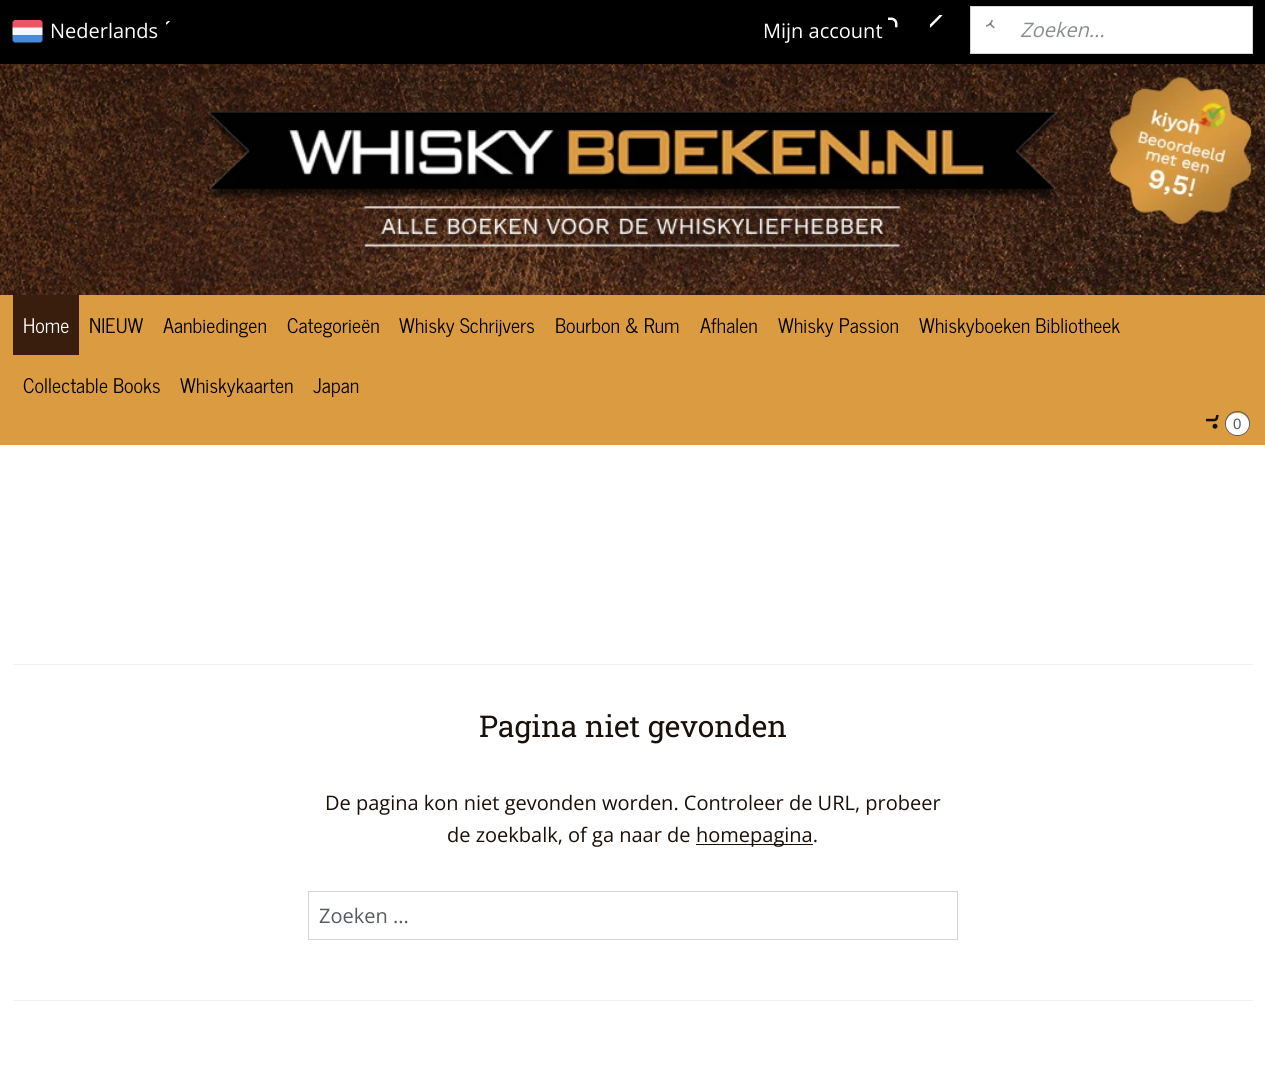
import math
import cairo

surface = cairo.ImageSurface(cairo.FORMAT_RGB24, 1265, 1065)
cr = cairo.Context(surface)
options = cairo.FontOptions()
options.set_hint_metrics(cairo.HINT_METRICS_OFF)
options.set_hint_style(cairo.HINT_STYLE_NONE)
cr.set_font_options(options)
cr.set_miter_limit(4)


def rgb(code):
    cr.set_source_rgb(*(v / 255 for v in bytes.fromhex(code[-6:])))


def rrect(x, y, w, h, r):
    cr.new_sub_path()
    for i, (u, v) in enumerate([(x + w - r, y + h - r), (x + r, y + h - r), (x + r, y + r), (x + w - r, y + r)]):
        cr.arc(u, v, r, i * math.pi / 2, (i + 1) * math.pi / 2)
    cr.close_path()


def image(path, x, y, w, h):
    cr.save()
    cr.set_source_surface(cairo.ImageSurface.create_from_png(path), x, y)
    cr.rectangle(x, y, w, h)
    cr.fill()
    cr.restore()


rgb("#ffffff")
cr.paint()
rgb("#000000")
cr.rectangle(0, 0, 1265, 64)
cr.fill()
image("img/1.png", 12, 20, 31, 23)
image("img/2.png", 166, 21, 4, 4)
image("img/3.png", 930, 15, 13, 13)
image("img/4.png", 888, 17, 10, 11)
rgb("#ffffff")
cr.rectangle(970.5, 6.5, 282, 47)
cr.fill_preserve()
rgb("#d3d5d9")
cr.set_line_width(1)
cr.stroke()
image("img/5.png", 986, 20, 9, 9)
image("img/6.png", 0, 63, 1265, 232)
image("img/7.png", 207, 111, 851, 145)
rgb("#db9b41")
cr.rectangle(0, 295, 1265, 150)
cr.fill()
rgb("#391e0d")
cr.rectangle(13, 295, 66, 60)
cr.fill()
image("img/8.png", 1206, 415, 13, 14)
cr.arc(1237.5, 423.5, 12, 0, 2 * math.pi)
rgb("#575b62")
cr.stroke()
rgb("#ffffff")
rrect(1226, 413, 23, 22, 11)
cr.fill()
for x, y, w, h, color in [
    (13, 664, 1240, 1, "#f2f1f1"),
    (13, 1000, 1240, 1, "#f2f1f1"),
    (696, 844, 117, 1, "#19100a"),
]:
    rgb(color)
    cr.rectangle(x, y, w, h)
    cr.fill()
cr.rectangle(308.5, 891.5, 649, 48)
rgb("#d3d5d9")
cr.stroke()
cr.select_font_face("Open Sans")
cr.set_font_size(20)
rgb("#ffffff")
cr.move_to(50, 38)
cr.show_text("Nederlands")
cr.move_to(763, 38)
cr.show_text("Mijn account")
cr.select_font_face("Open Sans", cairo.FONT_SLANT_ITALIC)
rgb("#898c91")
cr.move_to(1020, 37)
cr.show_text("Zoeken...")
cr.select_font_face("News Cycle")
rgb("#ffffff")
cr.move_to(23, 333)
cr.show_text("Home")
rgb("#000000")
for x, y, s in [
    (89, 333, "NIEUW"),
    (163, 333, "Aanbiedingen"),
    (287, 333, "Categorieën"),
    (399, 333, "Whisky Schrijvers"),
    (555, 333, "Bourbon & Rum"),
    (700, 333, "Afhalen"),
    (778, 333, "Whisky Passion"),
    (919, 333, "Whiskyboeken Bibliotheek"),
    (23, 393, "Collectable Books"),
    (180, 393, "Whiskykaarten"),
    (313, 393, "Japan"),
]:
    cr.move_to(x, y)
    cr.show_text(s)
cr.select_font_face("Liberation Sans")
cr.set_font_size(15)
rgb("#575b62")
cr.move_to(1233, 429)
cr.show_text("0")
cr.select_font_face("Roboto Slab")
cr.set_font_size(30)
rgb("#19100a")
cr.move_to(479, 737)
cr.show_text("Pagina niet gevonden")
cr.select_font_face("Open Sans")
cr.set_font_size(20)
for x, y, s in [
    (325, 810, "De pagina kon niet gevonden worden. Controleer de URL, probeer"),
    (447, 842, "de zoekbalk, of ga naar de"),
    (696, 842, "homepagina."),
]:
    cr.move_to(x, y)
    cr.show_text(s)
rgb("#575b62")
cr.move_to(319, 923)
cr.show_text("Zoeken ...")
surface.write_to_png("page.png")
